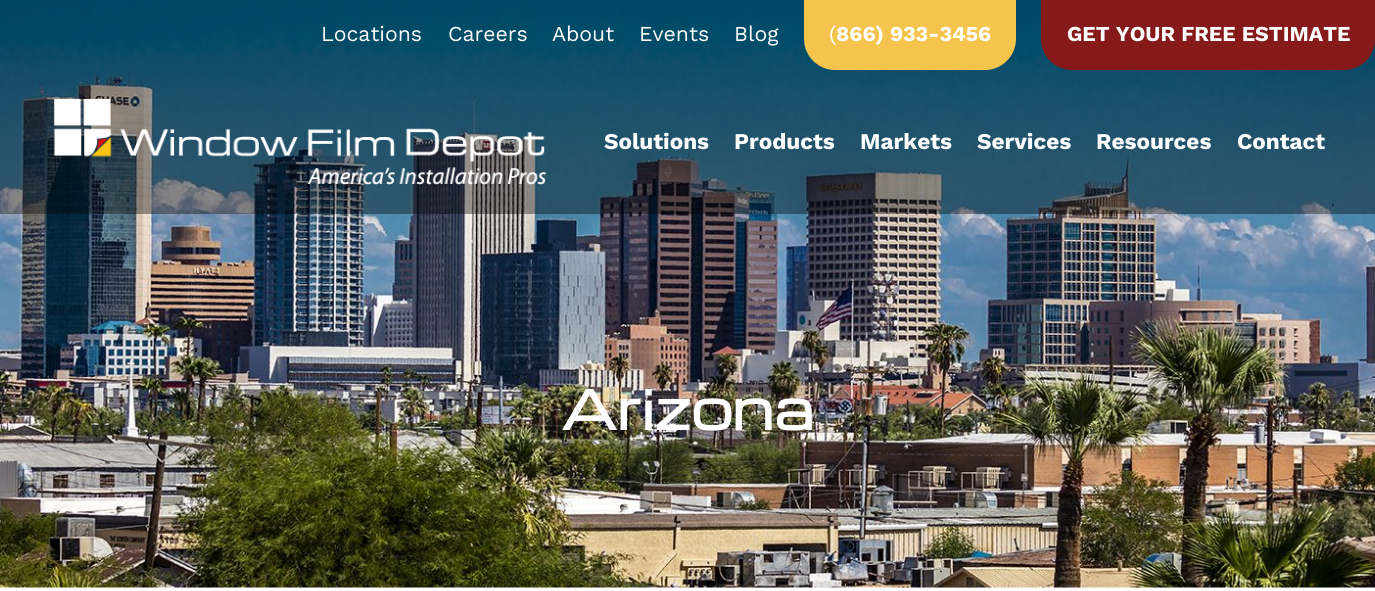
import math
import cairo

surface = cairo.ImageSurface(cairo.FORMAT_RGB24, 1375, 591)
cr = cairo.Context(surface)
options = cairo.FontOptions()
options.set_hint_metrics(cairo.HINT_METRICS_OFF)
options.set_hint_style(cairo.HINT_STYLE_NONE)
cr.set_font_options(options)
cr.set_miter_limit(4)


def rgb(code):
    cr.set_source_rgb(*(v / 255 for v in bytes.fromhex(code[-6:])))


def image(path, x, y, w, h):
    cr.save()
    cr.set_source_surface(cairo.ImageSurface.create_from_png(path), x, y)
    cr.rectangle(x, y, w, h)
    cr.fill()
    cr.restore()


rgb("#ffffff")
cr.paint()
image("img/2.png", 0, 0, 1375, 588)
cr.set_source_rgba(0, 0, 0, 0.38)
cr.rectangle(0, 0, 1375, 70)
cr.fill()
rgb("#f5c44d")
cr.new_path()
cr.move_to(804, 0)
cr.line_to(1016, 0)
cr.line_to(1016, 39)
cr.curve_to(1016, 56, 1002, 70, 985, 70)
cr.line_to(835, 70)
cr.curve_to(818, 70, 804, 56, 804, 39)
cr.close_path()
cr.fill()
rgb("#861919")
cr.new_path()
cr.move_to(1041, 0)
cr.line_to(1375, 0)
cr.line_to(1375, 39)
cr.curve_to(1375, 56, 1361, 70, 1344, 70)
cr.line_to(1072, 70)
cr.curve_to(1055, 70, 1041, 56, 1041, 39)
cr.close_path()
cr.fill()
cr.set_source_rgba(0, 0, 0, 0.38)
cr.rectangle(0, 70, 1375, 144)
cr.fill()
image("img/1.png", 53, 98, 494, 87)
cr.select_font_face("Work Sans")
cr.set_font_size(21.25)
rgb("#ffffff")
for x, y, s in [
    (321, 41, "Locations"),
    (448, 41, "Careers"),
    (552, 41, "About"),
    (639, 41, "Events"),
    (734, 41, "Blog"),
    (829, 41, "("),
]:
    cr.move_to(x, y)
    cr.show_text(s)
cr.select_font_face("Work Sans", cairo.FONT_SLANT_NORMAL, cairo.FONT_WEIGHT_BOLD)
cr.move_to(836, 41)
cr.show_text("866) 933-3456")
cr.move_to(1067, 41)
cr.show_text("GET YOUR FREE ESTIMATE")
cr.set_font_size(22.5)
for x, y, s in [
    (604, 149, "Solutions"),
    (734, 149, "Products"),
    (860, 149, "Markets"),
    (977, 149, "Services"),
    (1096, 149, "Resources"),
    (1237, 149, "Contact"),
]:
    cr.move_to(x, y)
    cr.show_text(s)
cr.select_font_face("Michroma", cairo.FONT_SLANT_NORMAL, cairo.FONT_WEIGHT_BOLD)
cr.set_font_size(52.5)
cr.move_to(561, 430)
cr.show_text("Arizona")
surface.write_to_png("page.png")
